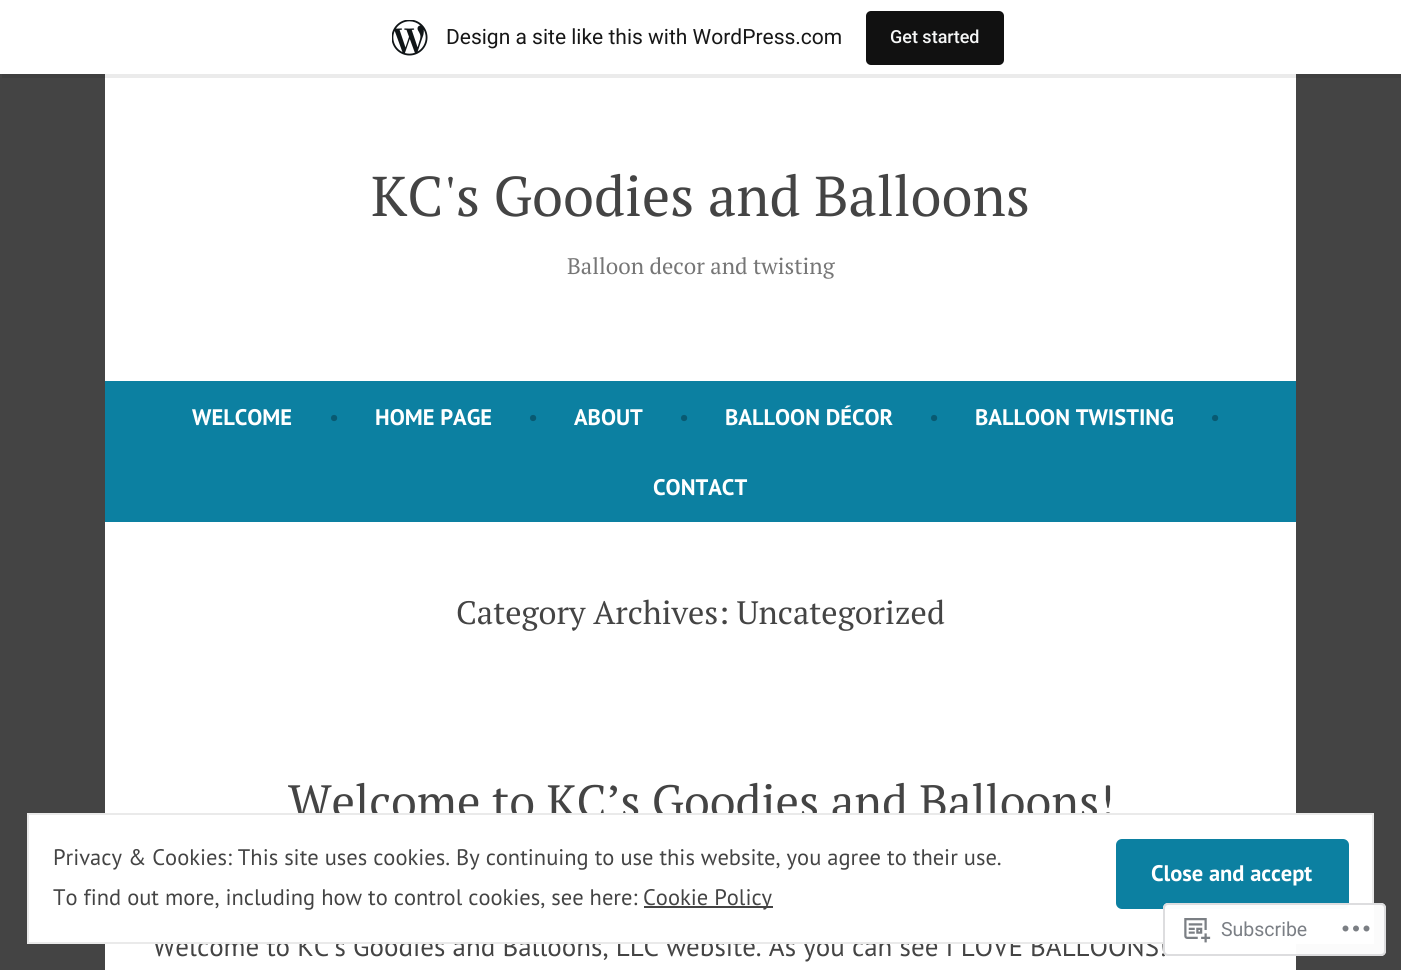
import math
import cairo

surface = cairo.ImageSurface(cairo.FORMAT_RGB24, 1401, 970)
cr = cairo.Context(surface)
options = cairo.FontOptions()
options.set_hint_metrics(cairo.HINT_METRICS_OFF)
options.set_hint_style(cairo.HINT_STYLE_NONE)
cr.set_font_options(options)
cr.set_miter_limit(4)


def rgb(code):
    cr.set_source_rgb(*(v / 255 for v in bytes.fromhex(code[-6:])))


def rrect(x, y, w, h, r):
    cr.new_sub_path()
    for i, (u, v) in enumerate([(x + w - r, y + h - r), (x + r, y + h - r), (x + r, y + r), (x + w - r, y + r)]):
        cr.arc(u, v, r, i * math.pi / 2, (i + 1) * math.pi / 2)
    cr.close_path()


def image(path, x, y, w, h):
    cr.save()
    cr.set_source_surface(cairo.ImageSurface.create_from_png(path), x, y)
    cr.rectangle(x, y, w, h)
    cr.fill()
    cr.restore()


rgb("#444444")
cr.paint()
rgb("#ffffff")
cr.rectangle(105, 74, 1191, 896)
cr.fill()
cr.set_source_rgba(0, 0, 0, 0.08)
cr.new_path()
cr.move_to(2, 74)
cr.line_to(2, 78)
cr.line_to(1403, 78)
cr.line_to(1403, 5)
cr.line_to(1401, 5)
cr.line_to(1401, 74)
cr.close_path()
cr.fill()
rgb("#ffffff")
cr.rectangle(0, 0, 1401, 74)
cr.fill()
image("img/1.png", 392, 20, 36, 36)
rgb("#111111")
rrect(866, 11, 138, 54, 5)
cr.fill()
rgb("#0c80a1")
cr.rectangle(105, 381, 1191, 141)
cr.fill()
cr.select_font_face("Roboto")
cr.set_font_size(21)
rgb("#171717")
cr.move_to(446, 44)
cr.show_text("Design a site like this with WordPress.com")
cr.select_font_face("Roboto Medium")
cr.set_font_size(18)
rgb("#f6f7f7")
cr.move_to(890, 43)
cr.show_text("Get started")
cr.select_font_face("PT Serif")
cr.set_font_size(56)
rgb("#444444")
cr.move_to(371, 216)
cr.show_text("KC's Goodies and Balloons")
cr.set_font_size(22.5)
rgb("#767676")
cr.move_to(567, 274)
cr.show_text("Balloon decor and twisting")
cr.select_font_face("PT Sans", cairo.FONT_SLANT_NORMAL, cairo.FONT_WEIGHT_BOLD)
rgb("#ffffff")
cr.move_to(192, 425)
cr.show_text("WELCOME")
cr.select_font_face("PT Sans")
rgb("#085a72")
cr.move_to(329, 425)
cr.show_text("•")
cr.select_font_face("PT Sans", cairo.FONT_SLANT_NORMAL, cairo.FONT_WEIGHT_BOLD)
rgb("#ffffff")
cr.move_to(375, 425)
cr.show_text("HOME PAGE")
cr.select_font_face("PT Sans")
rgb("#085a72")
cr.move_to(528, 425)
cr.show_text("•")
cr.select_font_face("PT Sans", cairo.FONT_SLANT_NORMAL, cairo.FONT_WEIGHT_BOLD)
rgb("#ffffff")
cr.move_to(574, 425)
cr.show_text("ABOUT")
cr.select_font_face("PT Sans")
rgb("#085a72")
cr.move_to(679, 425)
cr.show_text("•")
cr.select_font_face("PT Sans", cairo.FONT_SLANT_NORMAL, cairo.FONT_WEIGHT_BOLD)
rgb("#ffffff")
cr.move_to(725, 425)
cr.show_text("BALLOON DÉCOR")
cr.select_font_face("PT Sans")
rgb("#085a72")
cr.move_to(929, 425)
cr.show_text("•")
cr.select_font_face("PT Sans", cairo.FONT_SLANT_NORMAL, cairo.FONT_WEIGHT_BOLD)
rgb("#ffffff")
cr.move_to(975, 425)
cr.show_text("BALLOON TWISTING")
cr.select_font_face("PT Sans")
rgb("#085a72")
cr.move_to(1210, 425)
cr.show_text("•")
cr.select_font_face("PT Sans", cairo.FONT_SLANT_NORMAL, cairo.FONT_WEIGHT_BOLD)
rgb("#ffffff")
cr.move_to(653, 495)
cr.show_text("CONTACT")
cr.select_font_face("PT Serif")
cr.set_font_size(32.4)
rgb("#444444")
cr.move_to(456, 624)
cr.show_text("Category Archives: Uncategorized")
cr.set_font_size(46.7)
cr.move_to(288, 818)
cr.show_text("Welcome to KC’s Goodies and Balloons!")
cr.select_font_face("PT Sans")
cr.set_font_size(27)
cr.move_to(153, 956)
cr.show_text("Welcome to KC’s Goodies and Balloons, LLC website. As you can see I LOVE BALLOONS!")
rgb("#ffffff")
cr.rectangle(28, 814, 1345, 129)
cr.fill_preserve()
rgb("#eaeaea")
cr.stroke()
cr.set_font_size(22.5)
rgb("#444444")
cr.move_to(53, 865)
cr.show_text("Privacy & Cookies: This site uses cookies. By continuing to use this website, you agree to their use.")
rgb("#0c80a1")
rrect(1116, 839, 233, 70, 6)
cr.fill()
cr.select_font_face("PT Sans", cairo.FONT_SLANT_NORMAL, cairo.FONT_WEIGHT_BOLD)
rgb("#ffffff")
cr.move_to(1151, 881)
cr.show_text("Close and accept")
cr.select_font_face("PT Sans")
rgb("#444444")
cr.move_to(53, 905)
cr.show_text("To find out more, including how to control cookies, see here:")
cr.rectangle(644, 906, 129, 2)
cr.fill()
cr.move_to(643, 905)
cr.show_text("Cookie Policy")
cr.set_source_rgba(1, 1, 1, 0.98)
rrect(1163, 903, 223, 53, 5)
cr.fill()
rrect(1164, 904, 221, 51, 4)
cr.set_source_rgba(0.863, 0.863, 0.871, 0.98)
cr.stroke()
image("img/2.png", 1184, 918, 27, 25)
cr.select_font_face("Roboto")
cr.set_font_size(19.5)
rgb("#7b7f85")
cr.move_to(1221, 936)
cr.show_text("Subscribe")
image("img/3.png", 1342, 925, 28, 7)
surface.write_to_png("page.png")
